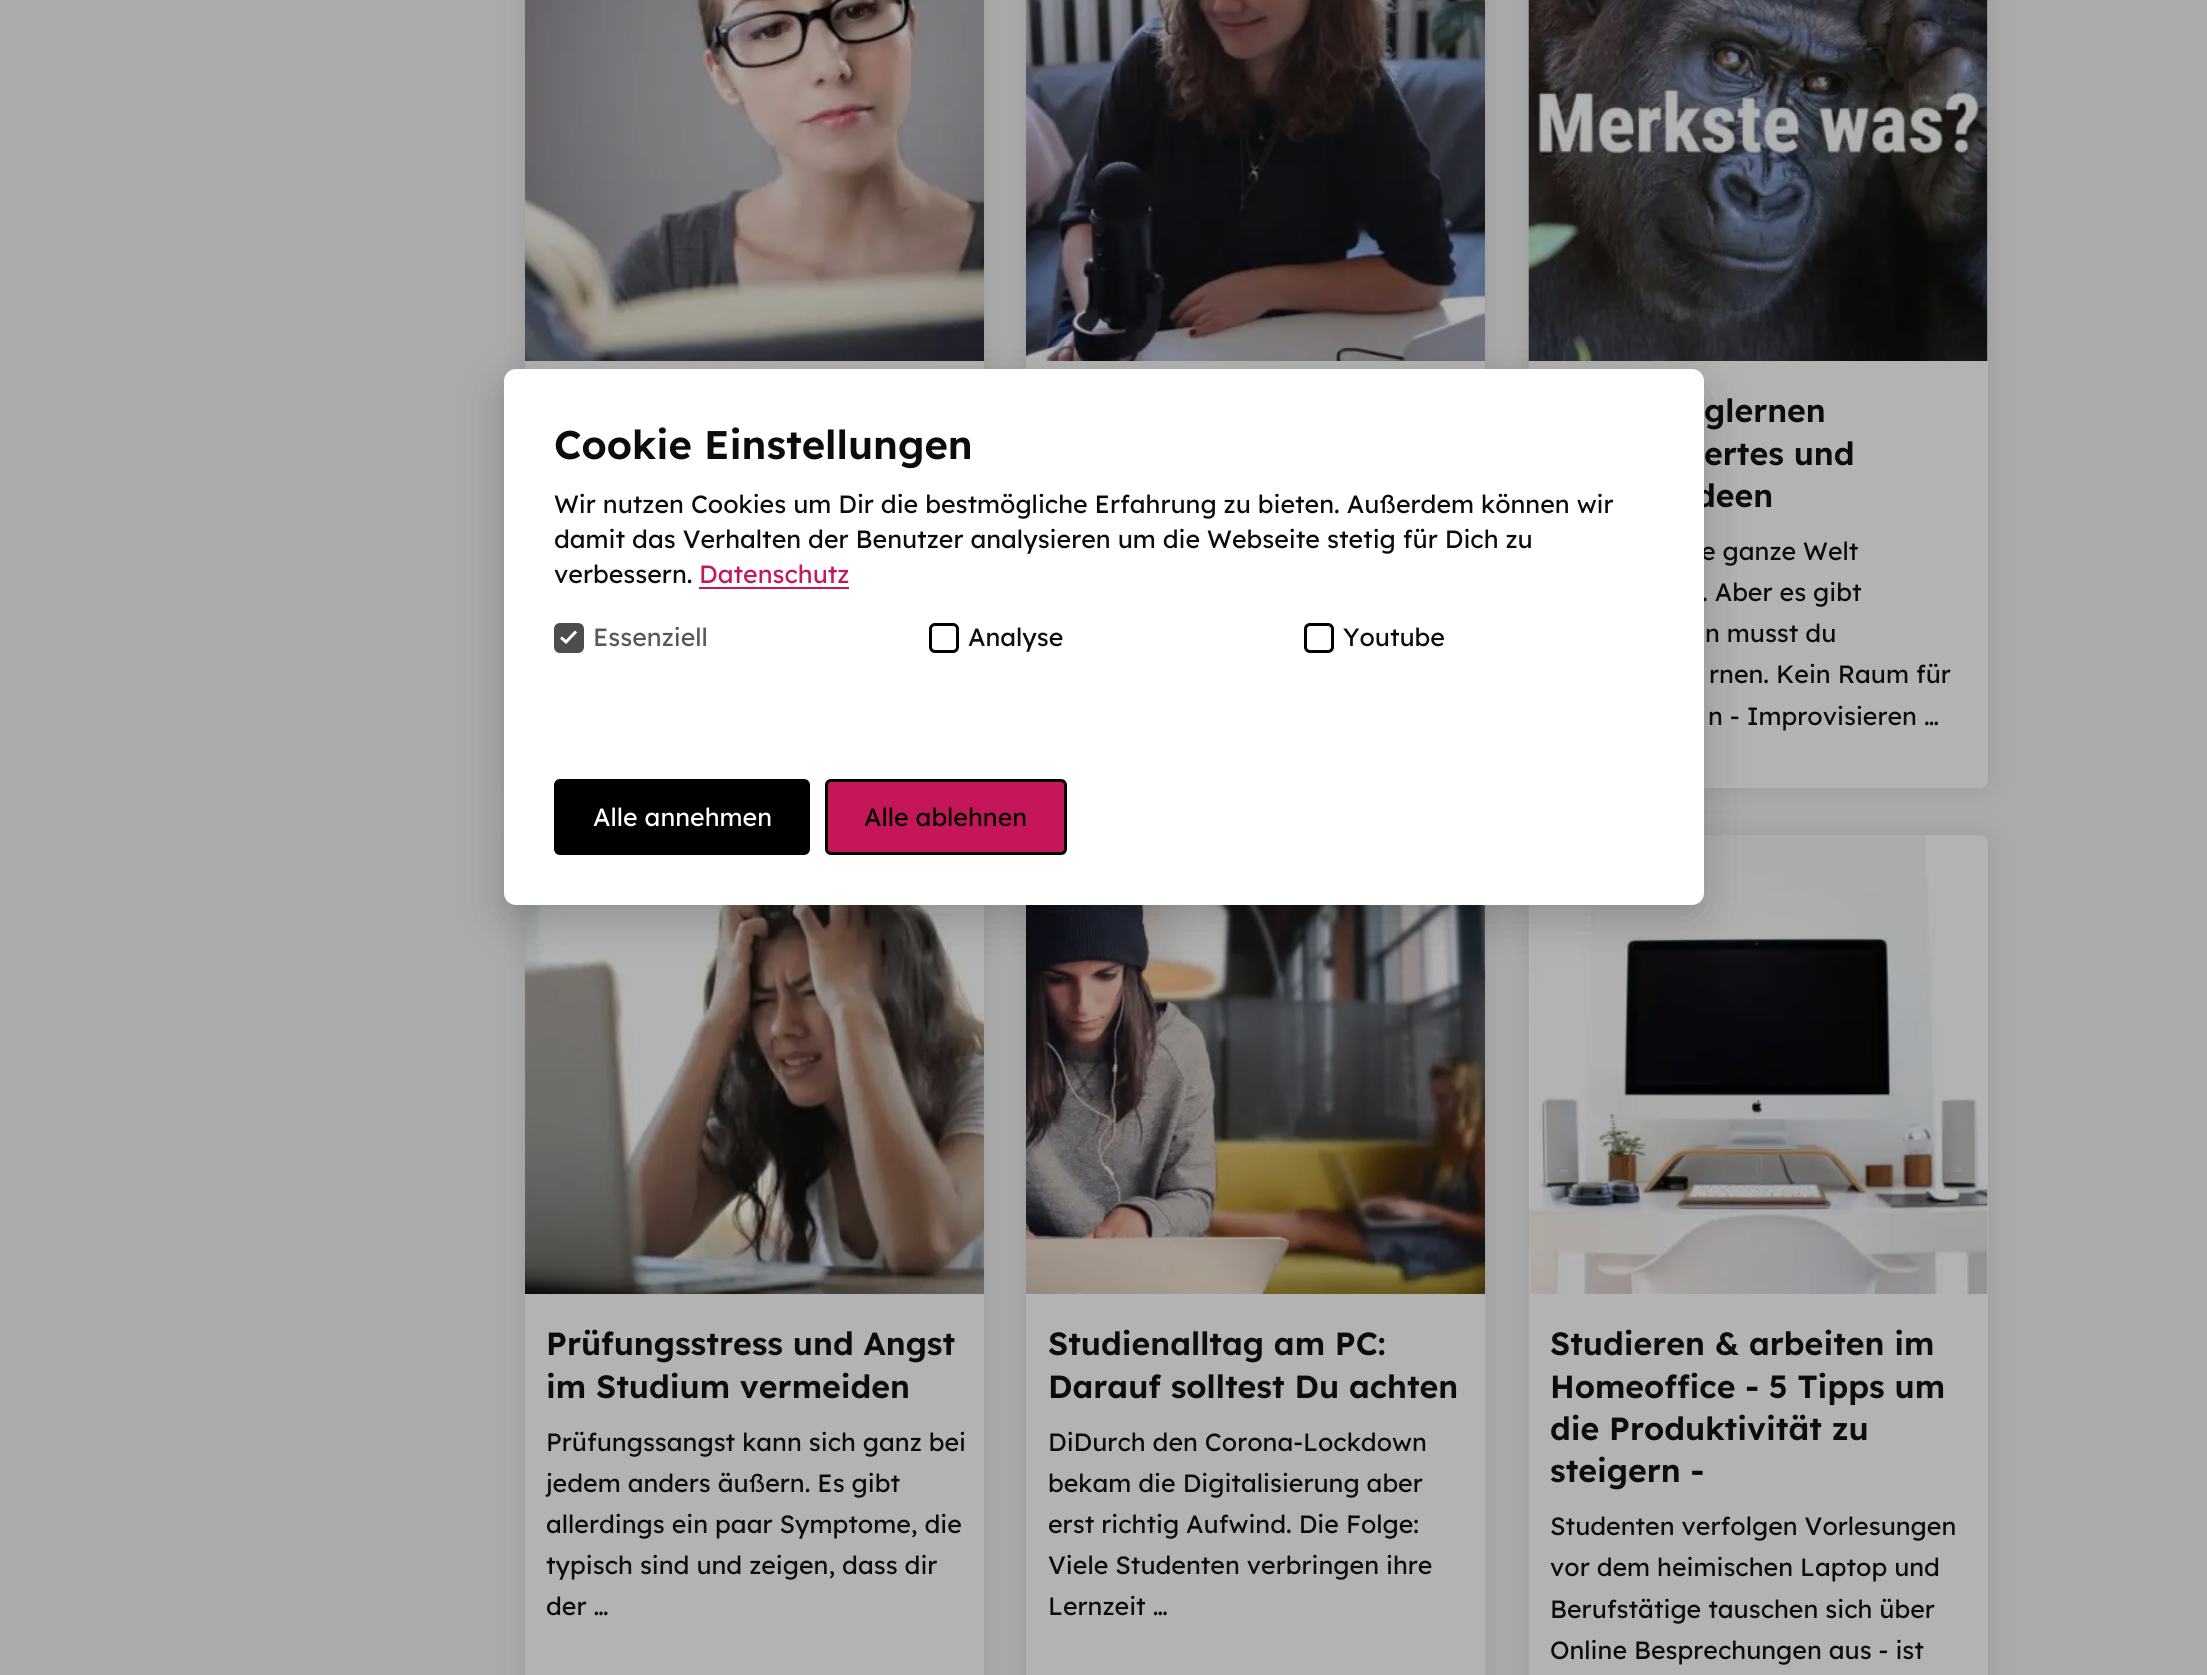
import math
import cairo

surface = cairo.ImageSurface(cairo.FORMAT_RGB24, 2207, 1675)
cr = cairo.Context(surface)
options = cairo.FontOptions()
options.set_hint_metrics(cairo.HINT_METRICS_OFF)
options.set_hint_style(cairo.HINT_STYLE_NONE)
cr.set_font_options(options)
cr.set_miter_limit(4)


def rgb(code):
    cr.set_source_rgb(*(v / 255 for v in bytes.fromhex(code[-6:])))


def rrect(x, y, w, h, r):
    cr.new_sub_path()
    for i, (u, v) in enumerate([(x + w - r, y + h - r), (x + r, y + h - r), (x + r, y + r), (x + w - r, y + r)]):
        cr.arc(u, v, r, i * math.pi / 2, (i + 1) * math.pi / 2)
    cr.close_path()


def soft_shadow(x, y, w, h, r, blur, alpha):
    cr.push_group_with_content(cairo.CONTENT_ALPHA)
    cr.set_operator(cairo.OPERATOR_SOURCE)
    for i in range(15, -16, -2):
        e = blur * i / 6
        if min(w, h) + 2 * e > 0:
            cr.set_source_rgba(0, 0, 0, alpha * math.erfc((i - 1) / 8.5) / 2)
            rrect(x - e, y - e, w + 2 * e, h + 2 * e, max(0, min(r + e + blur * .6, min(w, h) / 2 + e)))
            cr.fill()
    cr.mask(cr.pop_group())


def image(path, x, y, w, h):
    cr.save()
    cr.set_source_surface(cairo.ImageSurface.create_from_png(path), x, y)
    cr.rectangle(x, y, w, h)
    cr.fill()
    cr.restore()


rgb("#ababab")
cr.paint()
rgb("#000000")
soft_shadow(525, -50, 459, 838, 8, 14, 0.1)
rgb("#b3b3b3")
cr.rectangle(525, 361, 459, 8)
cr.fill()
rgb("#000000")
soft_shadow(1026, -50, 459, 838, 8, 14, 0.1)
image("img/1.png", 525, 0, 459, 361)
rgb("#b3b3b3")
cr.rectangle(1026, 361, 459, 8)
cr.fill()
image("img/2.png", 1026, 0, 459, 361)
rgb("#000000")
soft_shadow(1529, -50, 459, 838, 8, 14, 0.1)
rgb("#b3b3b3")
rrect(1529, -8, 459, 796, 8)
cr.fill()
image("img/3.png", 1528, 0, 460, 361)
rgb("#000000")
soft_shadow(525, 836, 459, 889, 8, 14, 0.1)
rgb("#b3b3b3")
cr.rectangle(525, 1294, 459, 381)
cr.fill()
rgb("#000000")
soft_shadow(1026, 836, 459, 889, 8, 14, 0.1)
image("img/4.png", 525, 905, 459, 389)
rgb("#b3b3b3")
cr.rectangle(1026, 1294, 459, 381)
cr.fill()
image("img/5.png", 1026, 905, 459, 389)
rgb("#000000")
soft_shadow(1529, 836, 459, 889, 8, 14, 0.1)
rgb("#b3b3b3")
rrect(1529, 836, 459, 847, 8)
cr.fill()
image("img/6.png", 1528, 835, 460, 459)
rgb("#000000")
soft_shadow(504, 384, 1200, 536, 12, 22.5, 0.2)
cr.select_font_face("Lexend SemiBold")
cr.set_font_size(32)
rgb("#0c0c0c")
for x, y, s in [
    (1704, 422, "glernen"),
    (1704, 465, "ertes und"),
    (1695, 507, "deen"),
]:
    cr.move_to(x, y)
    cr.show_text(s)
cr.select_font_face("Lexend")
cr.set_font_size(24.95)
for x, y, s in [
    (1701, 560, "e ganze Welt"),
    (1702, 601, ". Aber es gibt"),
    (1705, 642, "n musst du"),
    (1709, 683, "rnen. Kein Raum für"),
    (1708, 725, "n - Improvisieren …"),
]:
    cr.move_to(x, y)
    cr.show_text(s)
cr.select_font_face("Lexend SemiBold")
cr.set_font_size(32)
cr.move_to(546, 1355)
cr.show_text("Prüfungsstress und Angst")
cr.move_to(546, 1398)
cr.show_text("im Studium vermeiden")
cr.select_font_face("Lexend")
cr.set_font_size(24.95)
for x, y, s in [
    (546, 1451, "Prüfungssangst kann sich ganz bei"),
    (546, 1492, "jedem anders äußern. Es gibt"),
    (546, 1533, "allerdings ein paar Symptome, die"),
    (546, 1574, "typisch sind und zeigen, dass dir"),
    (546, 1615, "der …"),
]:
    cr.move_to(x, y)
    cr.show_text(s)
cr.select_font_face("Lexend SemiBold")
cr.set_font_size(32)
cr.move_to(1048, 1355)
cr.show_text("Studienalltag am PC:")
cr.move_to(1048, 1398)
cr.show_text("Darauf solltest Du achten")
cr.select_font_face("Lexend")
cr.set_font_size(24.95)
for x, y, s in [
    (1048, 1451, "DiDurch den Corona-Lockdown"),
    (1048, 1492, "bekam die Digitalisierung aber"),
    (1048, 1533, "erst richtig Aufwind. Die Folge:"),
    (1048, 1574, "Viele Studenten verbringen ihre"),
    (1048, 1615, "Lernzeit …"),
]:
    cr.move_to(x, y)
    cr.show_text(s)
cr.select_font_face("Lexend SemiBold")
cr.set_font_size(32)
for x, y, s in [
    (1550, 1355, "Studieren & arbeiten im"),
    (1550, 1398, "Homeoffice - 5 Tipps um"),
    (1550, 1440, "die Produktivität zu"),
    (1550, 1482, "steigern -"),
]:
    cr.move_to(x, y)
    cr.show_text(s)
cr.select_font_face("Lexend")
cr.set_font_size(24.95)
for x, y, s in [
    (1550, 1535, "Studenten verfolgen Vorlesungen"),
    (1550, 1576, "vor dem heimischen Laptop und"),
    (1550, 1618, "Berufstätige tauschen sich über"),
    (1550, 1659, "Online Besprechungen aus - ist"),
]:
    cr.move_to(x, y)
    cr.show_text(s)
rgb("#ffffff")
rrect(504, 369, 1200, 536, 12)
cr.fill()
cr.select_font_face("Lexend SemiBold")
cr.set_font_size(39.9)
rgb("#0c0c0c")
cr.move_to(554, 459)
cr.show_text("Cookie Einstellungen")
cr.select_font_face("Lexend")
cr.set_font_size(24.95)
for x, y, s in [
    (554, 513, "Wir nutzen Cookies um Dir die bestmögliche Erfahrung zu bieten. Außerdem können wir"),
    (554, 548, "damit das Verhalten der Benutzer analysieren um die Webseite stetig für Dich zu"),
    (554, 583, "verbessern."),
]:
    cr.move_to(x, y)
    cr.show_text(s)
rgb("#c51659")
cr.move_to(699, 583)
cr.show_text("Datenschutz")
cr.rectangle(699, 587, 150, 2)
cr.fill()
rgb("#4d4d4d")
rrect(555.5, 624.5, 27, 27, 4.5)
cr.fill_preserve()
cr.set_line_width(3)
cr.stroke()
rgb("#585858")
cr.move_to(593, 646)
cr.show_text("Essenziell")
cr.new_path()
cr.move_to(561, 637.5)
cr.line_to(566, 642)
cr.line_to(576, 631.5)
rgb("#ffffff")
cr.stroke()
rrect(930.5, 624.5, 27, 27, 4.5)
rgb("#000000")
cr.stroke()
rgb("#0c0c0c")
cr.move_to(968, 646)
cr.show_text("Analyse")
rrect(1305.5, 624.5, 27, 27, 4.5)
rgb("#000000")
cr.stroke()
rgb("#0c0c0c")
cr.move_to(1343, 646)
cr.show_text("Youtube")
rgb("#000000")
rrect(555.5, 780.5, 253, 73, 4.5)
cr.fill_preserve()
cr.stroke()
rgb("#ffffff")
cr.move_to(593, 826)
cr.show_text("Alle annehmen")
rgb("#c51659")
rrect(826.5, 780.5, 239, 73, 4.5)
cr.fill_preserve()
rgb("#000000")
cr.stroke()
cr.move_to(864, 826)
cr.show_text("Alle ablehnen")
surface.write_to_png("page.png")
